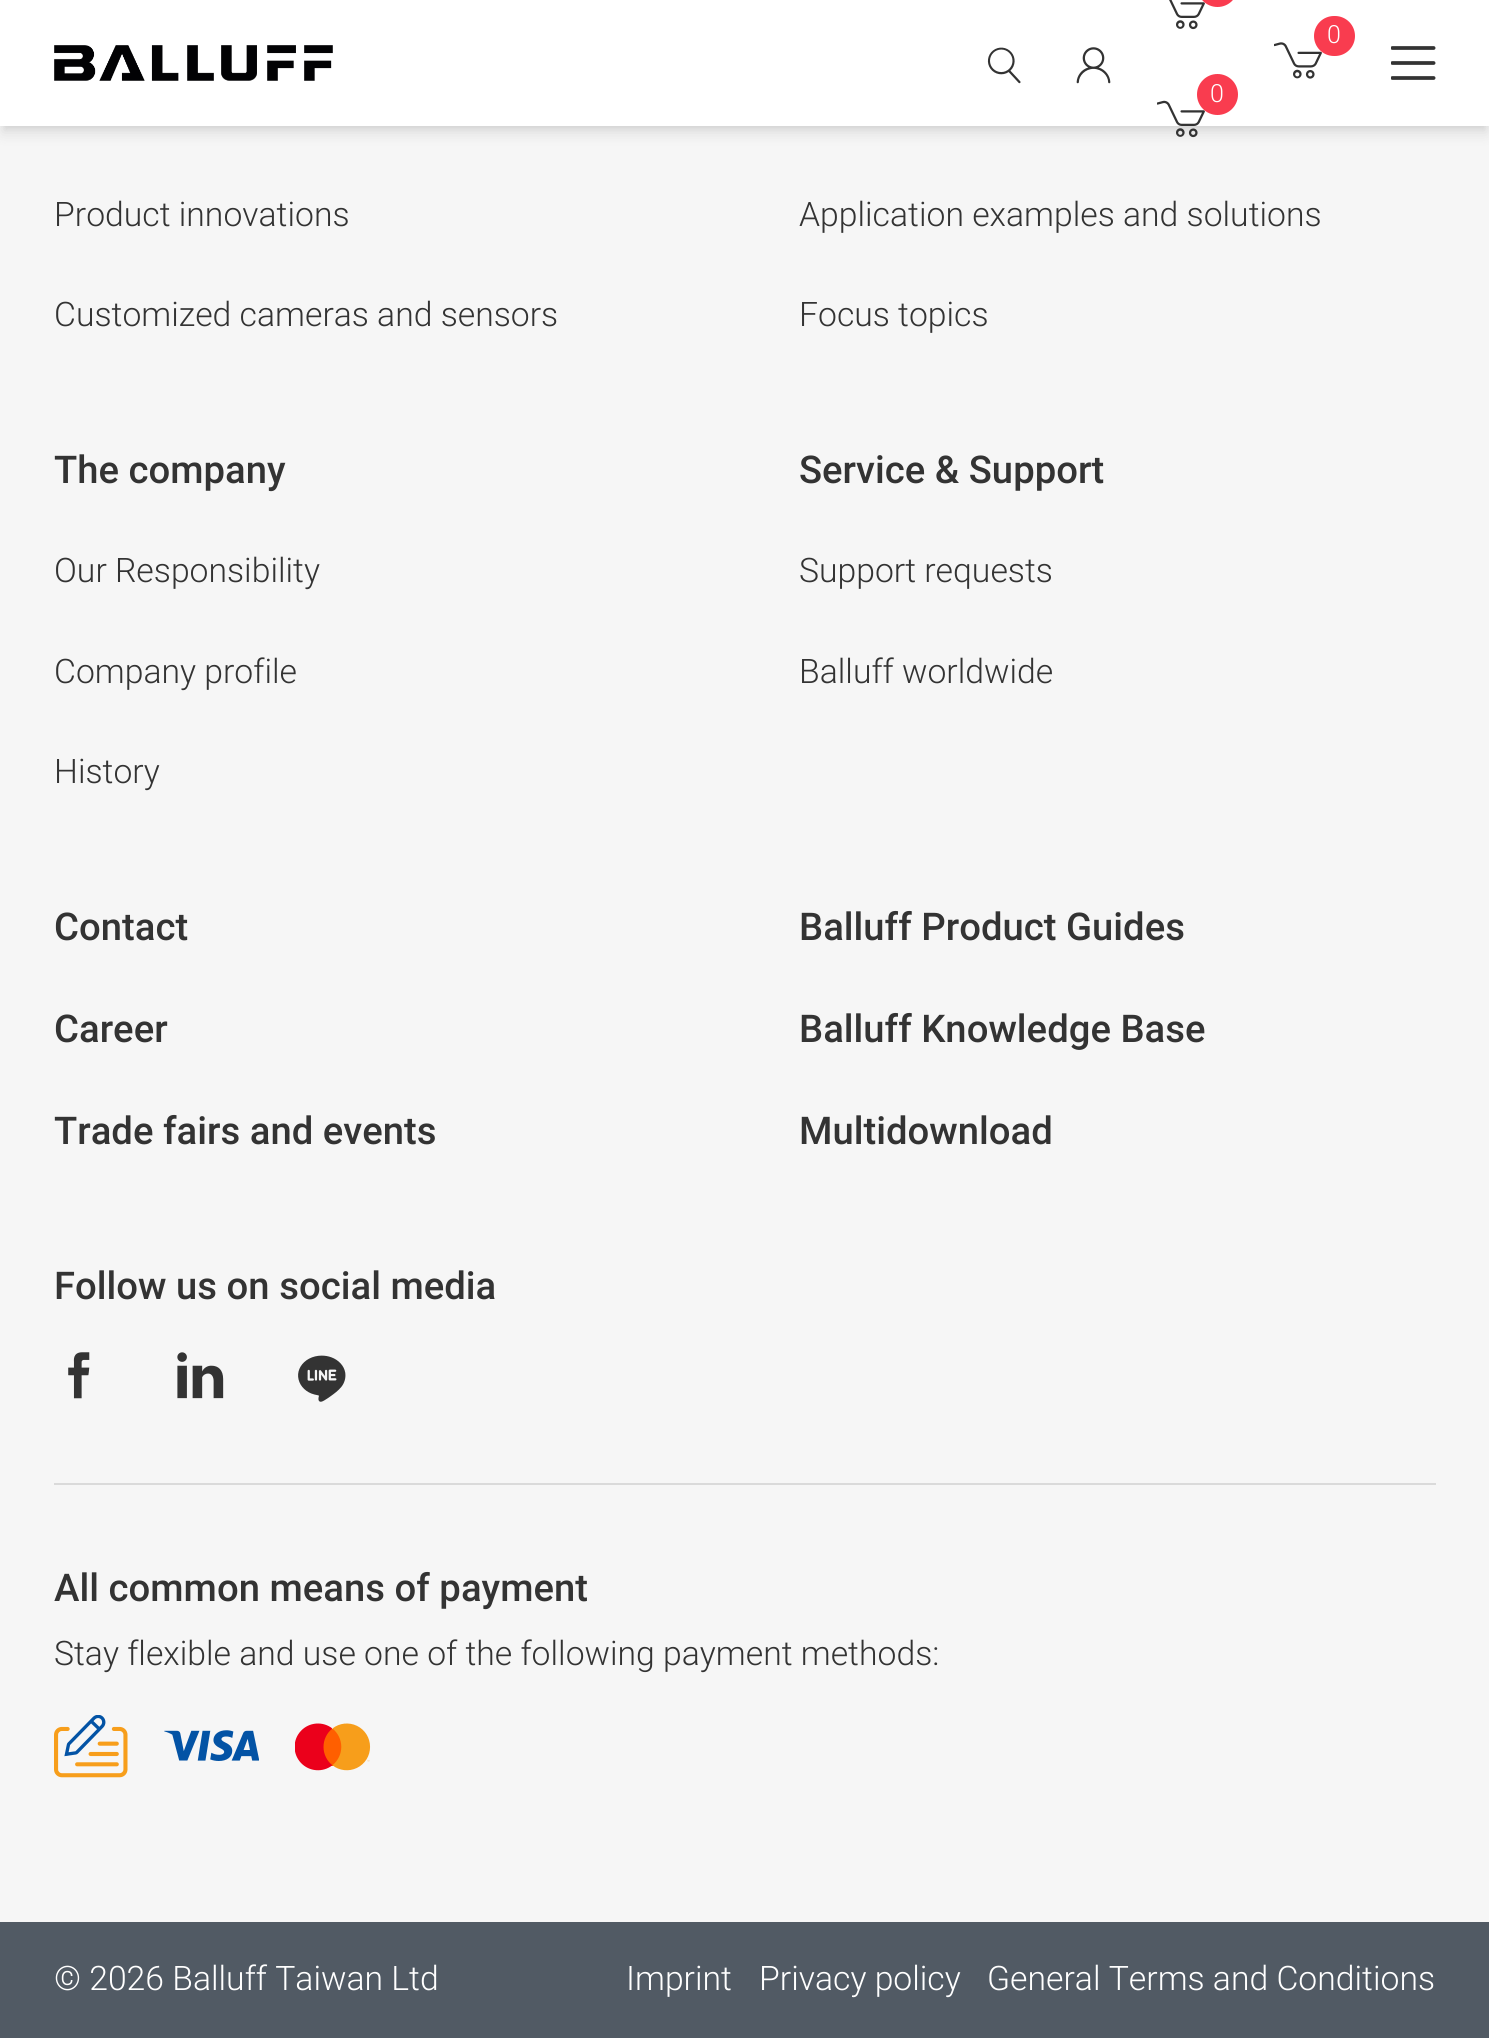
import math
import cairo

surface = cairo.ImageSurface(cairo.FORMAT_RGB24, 1489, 2038)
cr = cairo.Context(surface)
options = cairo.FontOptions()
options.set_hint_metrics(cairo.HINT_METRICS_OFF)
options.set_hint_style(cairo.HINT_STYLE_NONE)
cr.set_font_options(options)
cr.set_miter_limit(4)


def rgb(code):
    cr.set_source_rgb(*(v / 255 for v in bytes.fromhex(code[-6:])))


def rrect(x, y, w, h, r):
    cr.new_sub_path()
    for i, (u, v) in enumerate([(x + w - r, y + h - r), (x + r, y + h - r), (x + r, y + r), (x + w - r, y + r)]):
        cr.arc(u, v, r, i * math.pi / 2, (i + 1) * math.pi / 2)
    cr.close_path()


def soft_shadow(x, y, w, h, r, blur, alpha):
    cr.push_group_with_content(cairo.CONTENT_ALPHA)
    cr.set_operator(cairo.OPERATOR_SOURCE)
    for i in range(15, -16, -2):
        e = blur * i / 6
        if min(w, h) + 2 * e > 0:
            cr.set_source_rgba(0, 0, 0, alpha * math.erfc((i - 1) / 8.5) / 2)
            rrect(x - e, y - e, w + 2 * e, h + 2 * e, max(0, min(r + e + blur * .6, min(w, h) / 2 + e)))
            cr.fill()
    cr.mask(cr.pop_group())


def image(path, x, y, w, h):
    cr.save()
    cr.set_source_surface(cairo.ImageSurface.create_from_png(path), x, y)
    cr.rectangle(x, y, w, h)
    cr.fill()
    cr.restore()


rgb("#f6f6f6")
cr.paint()
rgb("#000000")
soft_shadow(5, 9, 1480, 117, 0, 4.5, 0.1)
soft_shadow(2, 11, 1485, 122, 0, 7, 0.1)
rgb("#ffffff")
cr.rectangle(0, 0, 1489, 126)
cr.fill()
image("img/1.png", 54, 45, 279, 36)
image("img/2.png", 1274, 42, 48, 37)
rgb("#f93c4f")
rrect(1314, 16, 41, 40, 20)
cr.fill()
image("img/3.png", 987, 47, 34, 37)
image("img/4.png", 1076, 47, 35, 37)
image("img/5.png", 1391, 46, 45, 34)
image("img/6.png", 1169, 0, 36, 30)
rrect(1197, -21, 41, 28, 20.5)
cr.fill()
image("img/7.png", 1157, 100, 48, 38)
cr.arc(1217.5, 94.5, 20.5, 0, 2 * math.pi)
cr.fill()
image("img/8.png", 68, 1352, 22, 47)
image("img/9.png", 177, 1352, 47, 47)
image("img/10.png", 298, 1355, 48, 47)
rgb("#dadada")
cr.rectangle(54, 1483, 1382, 2)
cr.fill()
image("img/11.png", 54, 1715, 74, 63)
image("img/12.png", 164, 1730, 95, 31)
image("img/13.png", 295, 1723, 76, 48)
rgb("#515a64")
cr.rectangle(0, 1922, 1489, 116)
cr.fill()
cr.select_font_face("Roboto Light")
cr.set_font_size(25)
rgb("#ffffff")
cr.move_to(1327, 43)
cr.show_text("0")
cr.move_to(1210, 102)
cr.show_text("0")
cr.set_font_size(33.75)
rgb("#333333")
for x, y, s in [
    (54, 226, "Product innovations"),
    (54, 326, "Customized cameras and sensors"),
    (799, 226, "Application examples and solutions"),
    (799, 326, "Focus topics"),
]:
    cr.move_to(x, y)
    cr.show_text(s)
cr.select_font_face("Roboto Medium")
cr.set_font_size(38.25)
cr.move_to(54, 483)
cr.show_text("The company")
cr.select_font_face("Roboto Light")
cr.set_font_size(33.75)
for x, y, s in [
    (54, 582, "Our Responsibility"),
    (54, 683, "Company profile"),
    (54, 783, "History"),
]:
    cr.move_to(x, y)
    cr.show_text(s)
cr.select_font_face("Roboto Medium")
cr.set_font_size(38.25)
cr.move_to(799, 483)
cr.show_text("Service & Support")
cr.select_font_face("Roboto Light")
cr.set_font_size(33.75)
cr.move_to(799, 582)
cr.show_text("Support requests")
cr.move_to(799, 683)
cr.show_text("Balluff worldwide")
cr.select_font_face("Roboto Medium")
cr.set_font_size(38.25)
for x, y, s in [
    (54, 940, "Contact"),
    (54, 1042, "Career"),
    (54, 1144, "Trade fairs and events"),
    (799, 940, "Balluff Product Guides"),
    (799, 1042, "Balluff Knowledge Base"),
    (799, 1144, "Multidownload"),
    (54, 1299, "Follow us on social media"),
    (54, 1601, "All common means of payment"),
]:
    cr.move_to(x, y)
    cr.show_text(s)
cr.select_font_face("Roboto Light")
cr.set_font_size(33.75)
cr.move_to(54, 1665)
cr.show_text("Stay flexible and use one of the following payment methods:")
rgb("#ffffff")
for x, y, s in [
    (54, 1990, "© 2026 Balluff Taiwan Ltd"),
    (626, 1990, "Imprint"),
    (759, 1990, "Privacy policy"),
    (987, 1990, "General Terms and Conditions"),
]:
    cr.move_to(x, y)
    cr.show_text(s)
surface.write_to_png("page.png")
